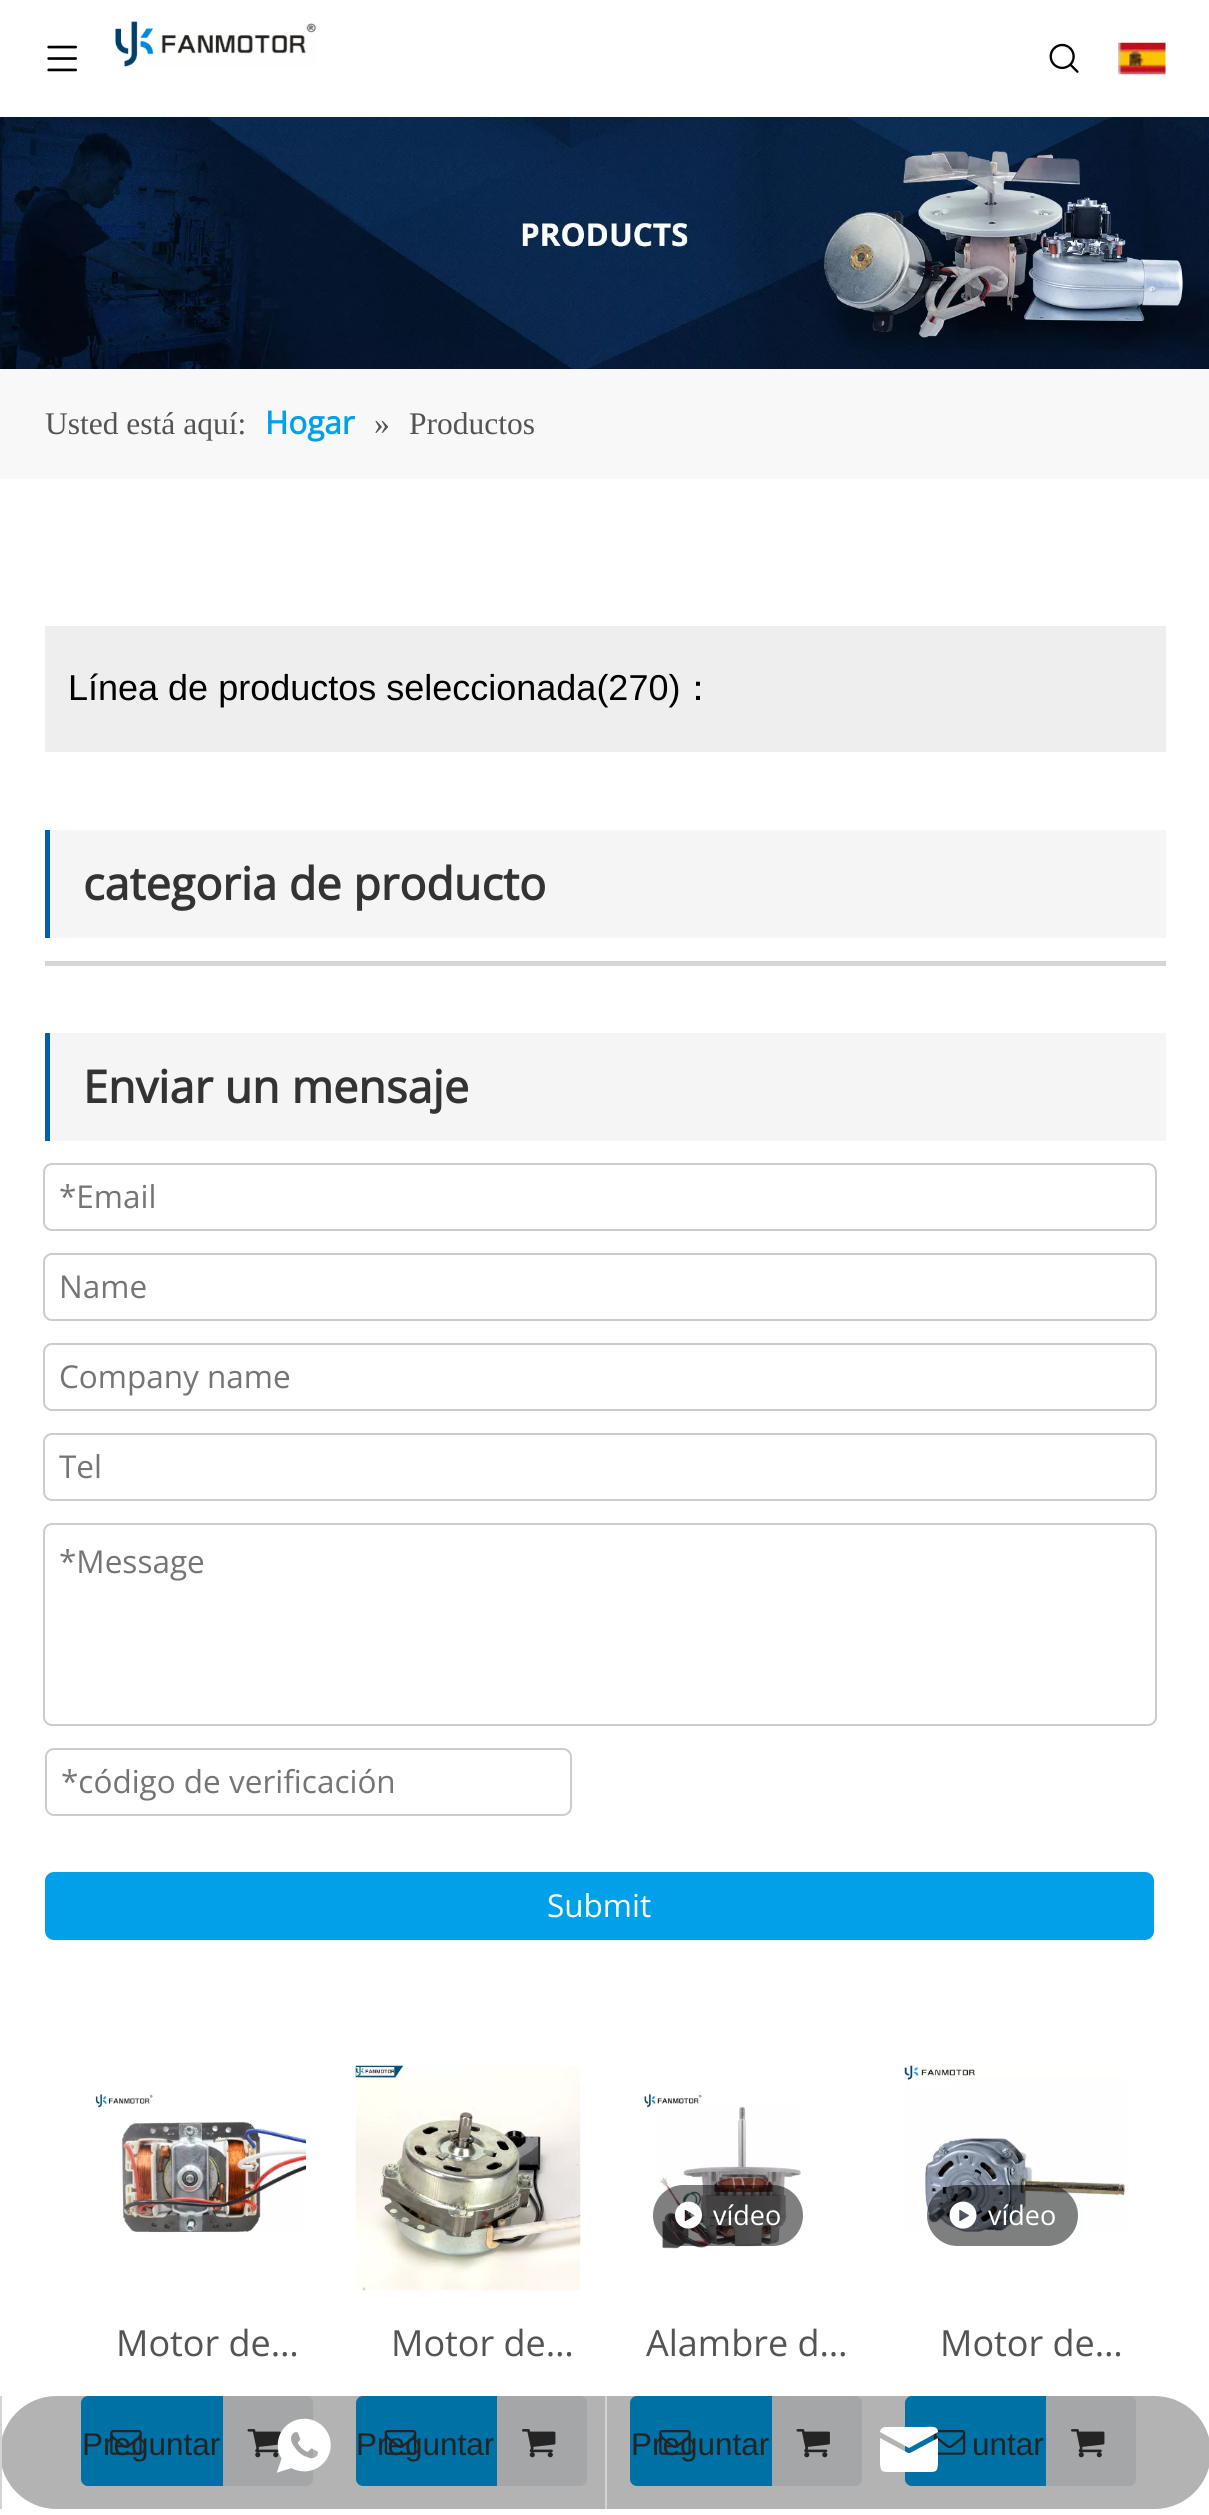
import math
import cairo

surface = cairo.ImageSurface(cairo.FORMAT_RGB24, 1209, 2515)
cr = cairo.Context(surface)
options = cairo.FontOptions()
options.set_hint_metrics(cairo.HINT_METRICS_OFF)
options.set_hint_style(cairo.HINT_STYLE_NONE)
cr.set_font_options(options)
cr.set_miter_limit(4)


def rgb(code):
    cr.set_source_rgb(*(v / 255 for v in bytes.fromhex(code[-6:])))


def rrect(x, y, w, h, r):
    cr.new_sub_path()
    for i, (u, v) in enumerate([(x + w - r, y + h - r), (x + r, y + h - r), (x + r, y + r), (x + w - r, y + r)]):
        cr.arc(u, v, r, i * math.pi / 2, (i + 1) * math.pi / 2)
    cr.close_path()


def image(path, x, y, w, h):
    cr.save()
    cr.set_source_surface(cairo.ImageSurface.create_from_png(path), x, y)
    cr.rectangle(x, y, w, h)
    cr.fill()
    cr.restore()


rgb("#ffffff")
cr.paint()
image("img/1.png", 47, 45, 30, 27)
image("img/2.png", 114, 21, 203, 47)
image("img/3.png", 1049, 43, 30, 30)
image("img/4.png", 1118, 42, 48, 33)
image("img/5.png", 0, 117, 1209, 252)
for x, y, w, h, color in [
    (0, 369, 1209, 110, "#f8f8f8"),
    (45, 626, 1121, 126, "#eeeeee"),
    (50, 830, 1116, 108, "#f5f5f5"),
    (45, 830, 5, 108, "#045fab"),
    (45, 961, 1121, 5, "#d6d6d6"),
    (50, 1033, 1116, 108, "#f5f5f5"),
    (45, 1033, 5, 108, "#045fab"),
]:
    rgb(color)
    cr.rectangle(x, y, w, h)
    cr.fill()
rrect(44, 1164, 1112, 66, 8)
rgb("#cccccc")
cr.stroke()
rrect(44, 1254, 1112, 66, 8)
cr.stroke()
rrect(44, 1344, 1112, 66, 8)
cr.stroke()
rrect(44, 1434, 1112, 66, 8)
cr.stroke()
rrect(44, 1524, 1112, 201, 8)
cr.stroke()
rrect(46, 1749, 525, 66, 8)
cr.stroke()
rgb("#00a1e9")
rrect(46, 1873, 1107, 66, 8)
cr.fill_preserve()
cr.stroke()
image("img/6.png", 95, 2093, 211, 141)
rrect(82, 2397, 228, 88, 6)
cr.fill_preserve()
cr.stroke()
rgb("#eaedef")
cr.new_path()
cr.move_to(221, 2396)
cr.line_to(306, 2396)
cr.curve_to(310, 2396, 313, 2399, 313, 2403)
cr.line_to(313, 2479)
cr.curve_to(313, 2483, 310, 2486, 306, 2486)
cr.line_to(221, 2486)
cr.close_path()
cr.fill()
rgb("#00a1e9")
cr.rectangle(221, 2396, 2, 90)
cr.fill()
image("img/8.png", 247, 2429, 34, 29)
image("img/9.png", 355, 2065, 226, 226)
rrect(357, 2397, 227, 88, 6)
cr.fill_preserve()
cr.stroke()
rgb("#eaedef")
cr.new_path()
cr.move_to(495, 2396)
cr.line_to(580, 2396)
cr.curve_to(584, 2396, 587, 2399, 587, 2403)
cr.line_to(587, 2479)
cr.curve_to(587, 2483, 584, 2486, 580, 2486)
cr.line_to(495, 2486)
cr.close_path()
cr.fill()
rgb("#00a1e9")
cr.rectangle(495, 2396, 2, 90)
cr.fill()
image("img/11.png", 522, 2429, 34, 29)
image("img/12.png", 644, 2093, 157, 156)
cr.set_source_rgba(0, 0, 0, 0.5)
rrect(653, 2185, 150, 61, 30.5)
cr.fill()
image("img/13.png", 675, 2201, 27, 28)
rgb("#00a1e9")
rrect(631, 2397, 228, 88, 6)
cr.fill_preserve()
cr.stroke()
rgb("#eaedef")
cr.new_path()
cr.move_to(770, 2396)
cr.line_to(855, 2396)
cr.curve_to(859, 2396, 862, 2399, 862, 2403)
cr.line_to(862, 2479)
cr.curve_to(862, 2483, 859, 2486, 855, 2486)
cr.line_to(770, 2486)
cr.close_path()
cr.fill()
rgb("#00a1e9")
cr.rectangle(770, 2396, 2, 90)
cr.fill()
image("img/8.png", 796, 2429, 34, 29)
image("img/14.png", 904, 2065, 222, 167)
cr.set_source_rgba(0, 0, 0, 0.5)
rrect(927, 2185, 151, 61, 30.5)
cr.fill()
image("img/15.png", 949, 2201, 28, 28)
rgb("#00a1e9")
rrect(906, 2397, 227, 88, 6)
cr.fill_preserve()
cr.stroke()
image("img/10.png", 933, 2430, 33, 25)
rgb("#eaedef")
cr.new_path()
cr.move_to(1044, 2396)
cr.line_to(1129, 2396)
cr.curve_to(1133, 2396, 1136, 2399, 1136, 2403)
cr.line_to(1136, 2479)
cr.curve_to(1136, 2483, 1133, 2486, 1129, 2486)
cr.line_to(1044, 2486)
cr.close_path()
cr.fill()
rgb("#00a1e9")
cr.rectangle(1044, 2396, 2, 90)
cr.fill()
image("img/11.png", 1071, 2429, 34, 29)
cr.select_font_face("Liberation Serif")
cr.set_font_size(31.5)
rgb("#545454")
cr.move_to(45, 434)
cr.show_text("Usted está aquí:")
cr.select_font_face("Open Sans", cairo.FONT_SLANT_NORMAL, cairo.FONT_WEIGHT_BOLD)
rgb("#00a1e9")
cr.move_to(265, 434)
cr.show_text("Hogar")
cr.select_font_face("Liberation Serif")
rgb("#545454")
cr.move_to(374, 434)
cr.show_text("»")
cr.move_to(409, 434)
cr.show_text("Productos")
cr.select_font_face("Liberation Sans")
cr.set_font_size(36)
rgb("#000000")
cr.move_to(68, 700)
cr.show_text("Línea de productos seleccionada(270)")
cr.select_font_face("WenQuanYi Zen Hei Medium")
cr.move_to(680, 700)
cr.show_text("：")
cr.select_font_face("Open Sans", cairo.FONT_SLANT_NORMAL, cairo.FONT_WEIGHT_BOLD)
cr.set_font_size(45)
rgb("#333333")
cr.move_to(83, 900)
cr.show_text("categoria de producto")
cr.move_to(83, 1103)
cr.show_text("Enviar un mensaje")
cr.select_font_face("Open Sans")
cr.set_font_size(31.5)
rgb("#757575")
for x, y, s in [
    (59, 1208, "*Email"),
    (59, 1298, "Name"),
    (59, 1388, "Company name"),
    (59, 1478, "Tel"),
    (59, 1573, "*Message"),
    (61, 1793, "*código de verificación"),
]:
    cr.move_to(x, y)
    cr.show_text(s)
rgb("#ffffff")
cr.move_to(547, 1917)
cr.show_text("Submit")
cr.set_font_size(36)
rgb("#545454")
cr.move_to(116, 2356)
cr.show_text("Motor de…")
cr.select_font_face("Liberation Sans")
cr.set_font_size(31.5)
rgb("#333333")
cr.move_to(82, 2455)
cr.show_text("Preguntar")
image("img/7.png", 110, 2430, 32, 25)
cr.select_font_face("Open Sans")
cr.set_font_size(36)
rgb("#545454")
cr.move_to(391, 2356)
cr.show_text("Motor de…")
cr.select_font_face("Liberation Sans")
cr.set_font_size(31.5)
rgb("#333333")
cr.move_to(356, 2455)
cr.show_text("Preguntar")
image("img/10.png", 384, 2430, 33, 25)
cr.select_font_face("Open Sans")
cr.set_font_size(27)
rgb("#ffffff")
cr.move_to(713, 2225)
cr.show_text("vídeo")
cr.set_font_size(36)
rgb("#545454")
cr.move_to(646, 2356)
cr.show_text("Alambre d…")
cr.select_font_face("Liberation Sans")
cr.set_font_size(31.5)
rgb("#333333")
cr.move_to(631, 2455)
cr.show_text("Preguntar")
image("img/7.png", 659, 2430, 32, 25)
cr.select_font_face("Open Sans")
cr.set_font_size(27)
rgb("#ffffff")
cr.move_to(988, 2225)
cr.show_text("vídeo")
cr.set_font_size(36)
rgb("#545454")
cr.move_to(940, 2356)
cr.show_text("Motor de…")
cr.select_font_face("Liberation Sans")
cr.set_font_size(31.5)
rgb("#333333")
cr.move_to(972, 2455)
cr.show_text("untar")
cr.set_source_rgba(0, 0, 0, 0.3)
rrect(0, 2396, 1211, 113, 56.5)
cr.fill()
rgb("#d3d3d3")
cr.rectangle(0, 2396, 2, 113)
cr.fill()
image("img/16.png", 276, 2418, 55, 55)
cr.rectangle(605, 2396, 2, 113)
cr.fill()
rgb("#ffffff")
cr.new_path()
cr.move_to(886, 2427)
cr.line_to(925, 2427)
cr.curve_to(929, 2427, 938, 2425, 938, 2432)
cr.line_to(909, 2448)
cr.line_to(880, 2432)
cr.curve_to(880, 2429, 883, 2427, 886, 2427)
cr.close_path()
cr.move_to(880, 2438)
cr.line_to(880, 2461)
cr.curve_to(880, 2473, 882, 2472, 893, 2472)
cr.line_to(925, 2472)
cr.curve_to(936, 2472, 938, 2473, 938, 2461)
cr.line_to(938, 2438)
cr.line_to(910, 2453)
cr.line_to(908, 2453)
cr.close_path()
cr.fill()
surface.write_to_png("page.png")
